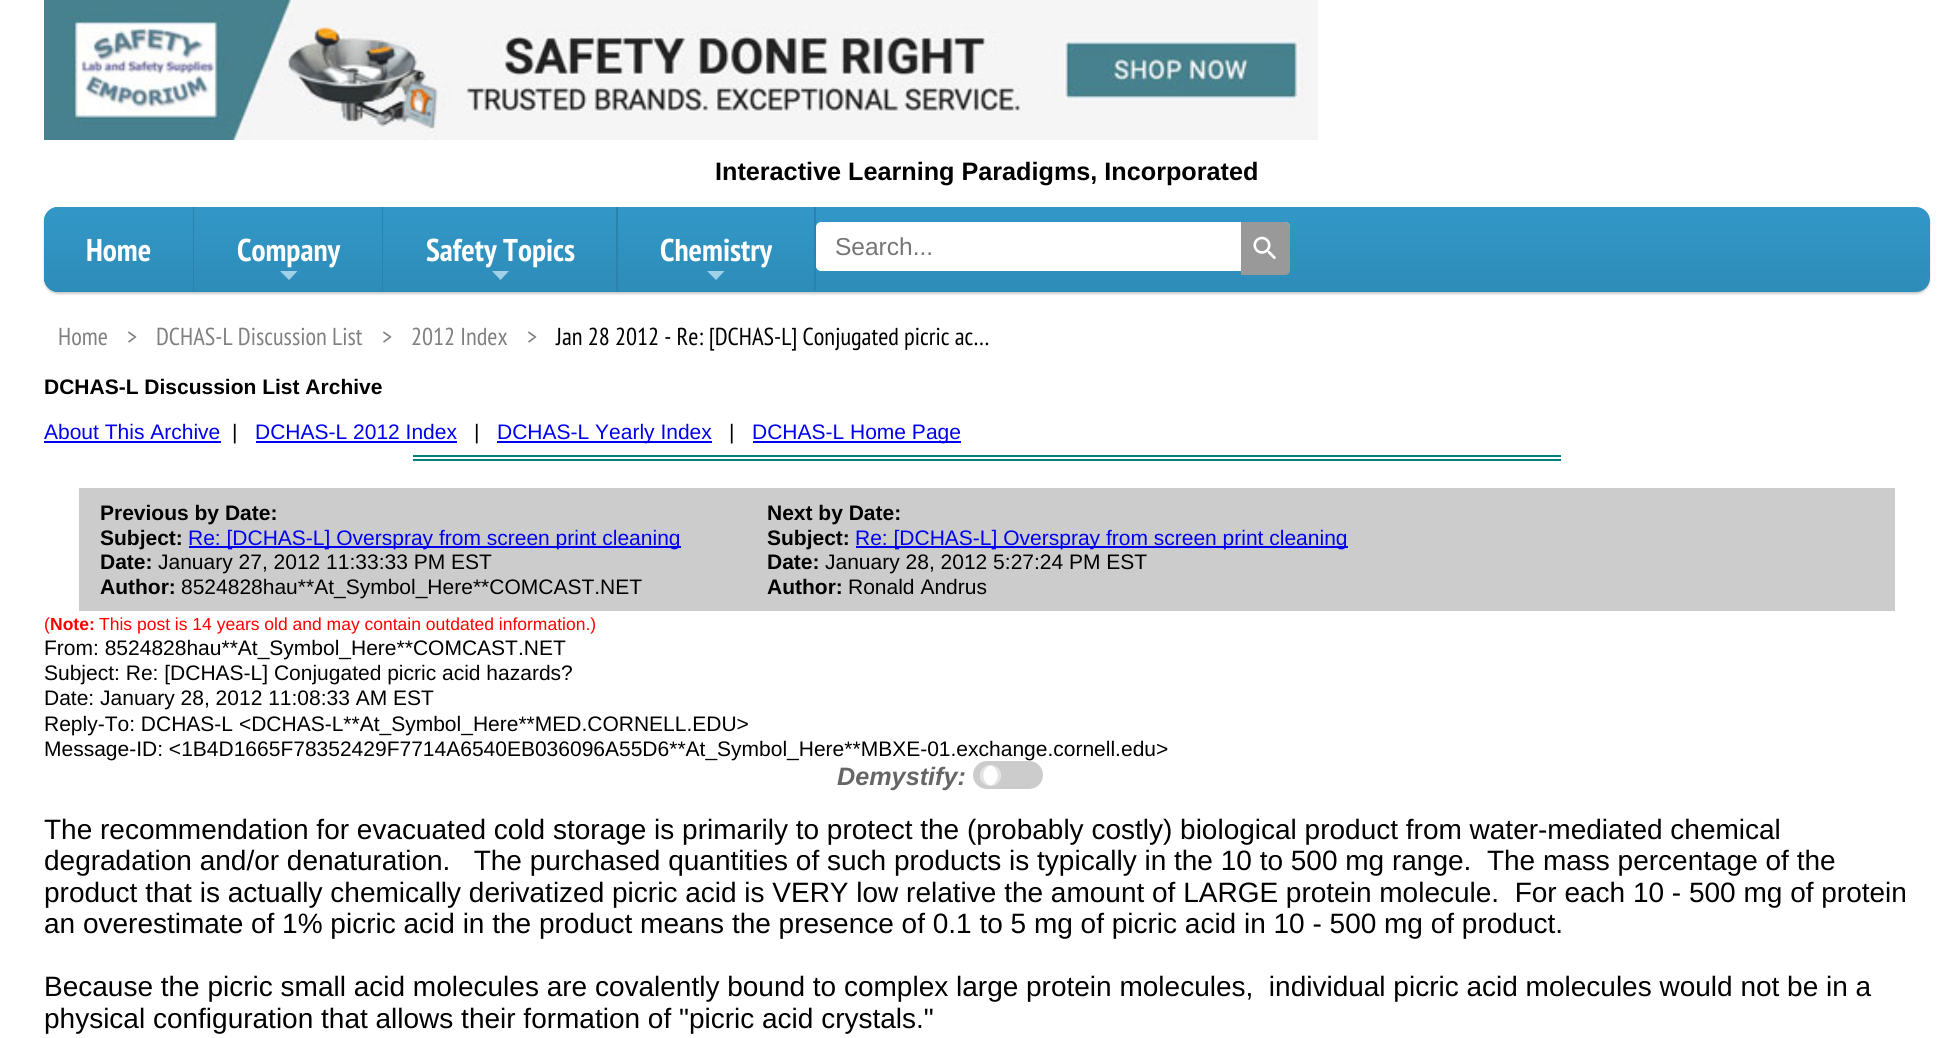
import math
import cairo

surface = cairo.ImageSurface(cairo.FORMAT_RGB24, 1944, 1038)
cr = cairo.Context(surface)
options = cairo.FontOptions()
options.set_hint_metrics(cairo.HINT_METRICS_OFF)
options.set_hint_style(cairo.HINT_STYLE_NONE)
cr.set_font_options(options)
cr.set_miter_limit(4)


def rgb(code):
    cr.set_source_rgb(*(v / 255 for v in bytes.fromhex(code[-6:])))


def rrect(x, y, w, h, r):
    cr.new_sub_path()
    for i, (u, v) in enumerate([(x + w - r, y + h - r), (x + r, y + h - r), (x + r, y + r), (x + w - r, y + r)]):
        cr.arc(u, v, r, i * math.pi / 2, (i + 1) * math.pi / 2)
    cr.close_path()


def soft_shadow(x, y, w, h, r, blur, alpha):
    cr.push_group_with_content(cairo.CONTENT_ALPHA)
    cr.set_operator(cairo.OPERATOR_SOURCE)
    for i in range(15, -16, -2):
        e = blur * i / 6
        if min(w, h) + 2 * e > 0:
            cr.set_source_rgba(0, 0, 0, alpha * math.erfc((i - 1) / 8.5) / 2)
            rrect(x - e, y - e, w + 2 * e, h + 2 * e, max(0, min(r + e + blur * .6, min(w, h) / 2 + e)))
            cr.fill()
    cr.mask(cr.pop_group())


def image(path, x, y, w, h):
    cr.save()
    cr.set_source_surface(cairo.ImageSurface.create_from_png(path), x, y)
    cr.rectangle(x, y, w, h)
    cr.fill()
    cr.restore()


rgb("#ffffff")
cr.paint()
image("img/1.png", 44, 0, 1274, 140)
rgb("#000000")
soft_shadow(44, 208, 1886, 86, 14, 1, 0.2)
gradient = cairo.LinearGradient(987, 206, 987, 292)
gradient.add_color_stop_rgba(0, 0.196, 0.596, 0.784, 1)
gradient.add_color_stop_rgba(1, 0.18, 0.549, 0.722, 1)
cr.set_source(gradient)
rrect(44, 207, 1886, 85, 14)
cr.fill()
gradient = cairo.LinearGradient(118, 207, 118, 292)
gradient.add_color_stop_rgba(0, 0.196, 0.596, 0.784, 1)
gradient.add_color_stop_rgba(1, 0.18, 0.549, 0.722, 1)
cr.set_source(gradient)
cr.new_path()
cr.move_to(58, 207)
cr.line_to(193, 207)
cr.line_to(193, 292)
cr.line_to(58, 292)
cr.curve_to(50.5, 292, 44, 285.5, 44, 278)
cr.line_to(44, 221)
cr.curve_to(44, 213.5, 50.5, 207, 58, 207)
cr.close_path()
cr.fill()
rgb("#2b82ac")
cr.rectangle(193, 207, 1, 85)
cr.fill()
rgb("#a1d1e8")
cr.new_path()
cr.move_to(280, 271)
cr.line_to(297.5, 271)
cr.line_to(289, 280)
cr.close_path()
cr.fill()
rgb("#2b82ac")
cr.rectangle(382, 207, 1, 85)
cr.fill()
rgb("#a1d1e8")
cr.new_path()
cr.move_to(492, 271)
cr.line_to(509, 271)
cr.line_to(500.5, 280)
cr.close_path()
cr.fill()
rgb("#2b82ac")
cr.rectangle(616, 207, 2, 85)
cr.fill()
rgb("#a1d1e8")
cr.new_path()
cr.move_to(707, 271)
cr.line_to(724.5, 271)
cr.line_to(716, 280)
cr.close_path()
cr.fill()
rgb("#2b82ac")
cr.rectangle(814, 207, 2, 84)
cr.fill()
rgb("#ffffff")
rrect(817, 223, 472, 47, 4)
cr.fill_preserve()
cr.stroke()
rgb("#999999")
cr.new_path()
cr.move_to(1241, 222)
cr.line_to(1285, 222)
cr.curve_to(1288, 222, 1290, 224, 1290, 227)
cr.line_to(1290, 270)
cr.curve_to(1290, 273, 1288, 275, 1285, 275)
cr.line_to(1241, 275)
cr.close_path()
cr.fill()
image("img/2.png", 1253, 236, 23, 23)
for x, y, w, h, color in [
    (44, 441, 177, 2, "#0000ee"),
    (256, 441, 201, 2, "#0000ee"),
    (497, 441, 215, 2, "#0000ee"),
    (753, 441, 208, 2, "#0000ee"),
    (413, 455, 1148, 2, "#008080"),
    (413, 459, 1148, 2, "#008080"),
    (79, 488, 1816, 123, "#cccccc"),
    (189, 546, 492, 2, "#0000ee"),
    (856, 546, 492, 2, "#0000ee"),
]:
    rgb(color)
    cr.rectangle(x, y, w, h)
    cr.fill()
rgb("#cccccc")
rrect(973, 761, 70, 28, 14)
cr.fill()
rgb("#ffffff")
cr.arc(990.5, 775.5, 10.5, 0, 2 * math.pi)
cr.fill()
cr.set_source_rgba(0.784, 0.784, 0.784, 0.5)
cr.new_path()
cr.move_to(990.5, 765)
cr.curve_to(975.5, 765, 977.5, 788, 992, 786)
cr.curve_to(980.5, 784, 980.5, 767, 992, 765)
cr.close_path()
cr.fill()
cr.new_path()
cr.move_to(990.5, 765)
cr.line_to(989, 765)
cr.curve_to(1000.5, 767, 1000.5, 784, 989, 786)
cr.curve_to(1003.5, 788, 1005.5, 765, 990.5, 765)
cr.close_path()
cr.fill()
cr.select_font_face("Liberation Sans", cairo.FONT_SLANT_NORMAL, cairo.FONT_WEIGHT_BOLD)
cr.set_font_size(25.2)
rgb("#000000")
cr.move_to(715, 180)
cr.show_text("Interactive Learning Paradigms, Incorporated")
cr.select_font_face("PT Sans Narrow", cairo.FONT_SLANT_NORMAL, cairo.FONT_WEIGHT_BOLD)
cr.set_font_size(31.5)
rgb("#ffffff")
for x, y, s in [
    (86, 261, "Home"),
    (237, 261, "Company"),
    (426, 261, "Safety Topics"),
    (660, 261, "Chemistry"),
]:
    cr.move_to(x, y)
    cr.show_text(s)
cr.select_font_face("Liberation Sans")
cr.set_font_size(24.5)
rgb("#757575")
cr.move_to(835, 255)
cr.show_text("Search...")
cr.select_font_face("PT Sans Narrow")
rgb("#808080")
for x, y, s in [
    (58, 345, "Home"),
    (127, 345, ">"),
    (156, 345, "DCHAS-L Discussion List"),
    (382, 345, ">"),
    (411, 345, "2012 Index"),
    (527, 345, ">"),
]:
    cr.move_to(x, y)
    cr.show_text(s)
rgb("#000000")
cr.move_to(556, 345)
cr.show_text("Jan 28 2012 - Re: [DCHAS-L] Conjugated picric ac…")
cr.select_font_face("Liberation Sans", cairo.FONT_SLANT_NORMAL, cairo.FONT_WEIGHT_BOLD)
cr.set_font_size(21)
cr.move_to(44, 394)
cr.show_text("DCHAS-L Discussion List Archive")
cr.select_font_face("Liberation Sans")
rgb("#0000ee")
cr.move_to(44, 439)
cr.show_text("About This Archive")
rgb("#000000")
cr.move_to(232, 439)
cr.show_text("|")
rgb("#0000ee")
cr.move_to(255, 439)
cr.show_text("DCHAS-L 2012 Index")
rgb("#000000")
cr.move_to(474, 439)
cr.show_text("|")
rgb("#0000ee")
cr.move_to(497, 439)
cr.show_text("DCHAS-L Yearly Index")
rgb("#000000")
cr.move_to(729, 439)
cr.show_text("|")
rgb("#0000ee")
cr.move_to(752, 439)
cr.show_text("DCHAS-L Home Page")
cr.select_font_face("Liberation Sans", cairo.FONT_SLANT_NORMAL, cairo.FONT_WEIGHT_BOLD)
rgb("#000000")
cr.move_to(100, 520)
cr.show_text("Previous by Date:")
cr.move_to(100, 545)
cr.show_text("Subject:")
cr.select_font_face("Liberation Sans")
rgb("#0000ee")
cr.move_to(188, 545)
cr.show_text("Re: [DCHAS-L] Overspray from screen print cleaning")
cr.select_font_face("Liberation Sans", cairo.FONT_SLANT_NORMAL, cairo.FONT_WEIGHT_BOLD)
rgb("#000000")
cr.move_to(100, 569)
cr.show_text("Date:")
cr.select_font_face("Liberation Sans")
cr.move_to(158, 569)
cr.show_text("January 27, 2012 11:33:33 PM EST")
cr.select_font_face("Liberation Sans", cairo.FONT_SLANT_NORMAL, cairo.FONT_WEIGHT_BOLD)
cr.move_to(100, 594)
cr.show_text("Author:")
cr.select_font_face("Liberation Sans")
cr.move_to(181, 594)
cr.show_text("8524828hau**At_Symbol_Here**COMCAST.NET")
cr.select_font_face("Liberation Sans", cairo.FONT_SLANT_NORMAL, cairo.FONT_WEIGHT_BOLD)
cr.move_to(767, 520)
cr.show_text("Next by Date:")
cr.move_to(767, 545)
cr.show_text("Subject:")
cr.select_font_face("Liberation Sans")
rgb("#0000ee")
cr.move_to(855, 545)
cr.show_text("Re: [DCHAS-L] Overspray from screen print cleaning")
cr.select_font_face("Liberation Sans", cairo.FONT_SLANT_NORMAL, cairo.FONT_WEIGHT_BOLD)
rgb("#000000")
cr.move_to(767, 569)
cr.show_text("Date:")
cr.select_font_face("Liberation Sans")
cr.move_to(825, 569)
cr.show_text("January 28, 2012 5:27:24 PM EST")
cr.select_font_face("Liberation Sans", cairo.FONT_SLANT_NORMAL, cairo.FONT_WEIGHT_BOLD)
cr.move_to(767, 594)
cr.show_text("Author:")
cr.select_font_face("Liberation Sans")
cr.move_to(848, 594)
cr.show_text("Ronald Andrus")
cr.set_font_size(17.5)
rgb("#ff0000")
cr.move_to(44, 630)
cr.show_text("(")
cr.select_font_face("Liberation Sans", cairo.FONT_SLANT_NORMAL, cairo.FONT_WEIGHT_BOLD)
cr.move_to(50, 630)
cr.show_text("Note:")
cr.select_font_face("Liberation Sans")
cr.move_to(99, 630)
cr.show_text("This post is 14 years old and may contain outdated information.)")
cr.set_font_size(21)
rgb("#000000")
for x, y, s in [
    (44, 655, "From: 8524828hau**At_Symbol_Here**COMCAST.NET"),
    (44, 680, "Subject: Re: [DCHAS-L] Conjugated picric acid hazards?"),
    (44, 705, "Date: January 28, 2012 11:08:33 AM EST"),
    (44, 731, "Reply-To: DCHAS-L <DCHAS-L**At_Symbol_Here**MED.CORNELL.EDU>"),
    (44, 756, "Message-ID: <1B4D1665F78352429F7714A6540EB036096A55D6**At_Symbol_Here**MBXE-01.exchange.cornell.edu>"),
]:
    cr.move_to(x, y)
    cr.show_text(s)
cr.select_font_face("Liberation Sans", cairo.FONT_SLANT_ITALIC, cairo.FONT_WEIGHT_BOLD)
cr.set_font_size(25.2)
rgb("#666666")
cr.move_to(837, 785)
cr.show_text("Demystify:")
cr.select_font_face("Liberation Sans")
cr.set_font_size(28)
rgb("#000000")
for x, y, s in [
    (44, 839, "The recommendation for evacuated cold storage is primarily to protect the (probably costly) biological product from water-mediated chemical"),
    (44, 870, "degradation and/or denaturation.   The purchased quantities of such products is typically in the 10 to 500 mg range.  The mass percentage of the"),
    (44, 902, "product that is actually chemically derivatized picric acid is VERY low relative the amount of LARGE protein molecule.  For each 10 - 500 mg of protein"),
    (44, 933, "an overestimate of 1% picric acid in the product means the presence of 0.1 to 5 mg of picric acid in 10 - 500 mg of product."),
    (44, 996, "Because the picric small acid molecules are covalently bound to complex large protein molecules,  individual picric acid molecules would not be in a"),
    (44, 1028, "physical configuration that allows their formation of \"picric acid crystals.\""),
]:
    cr.move_to(x, y)
    cr.show_text(s)
surface.write_to_png("page.png")
